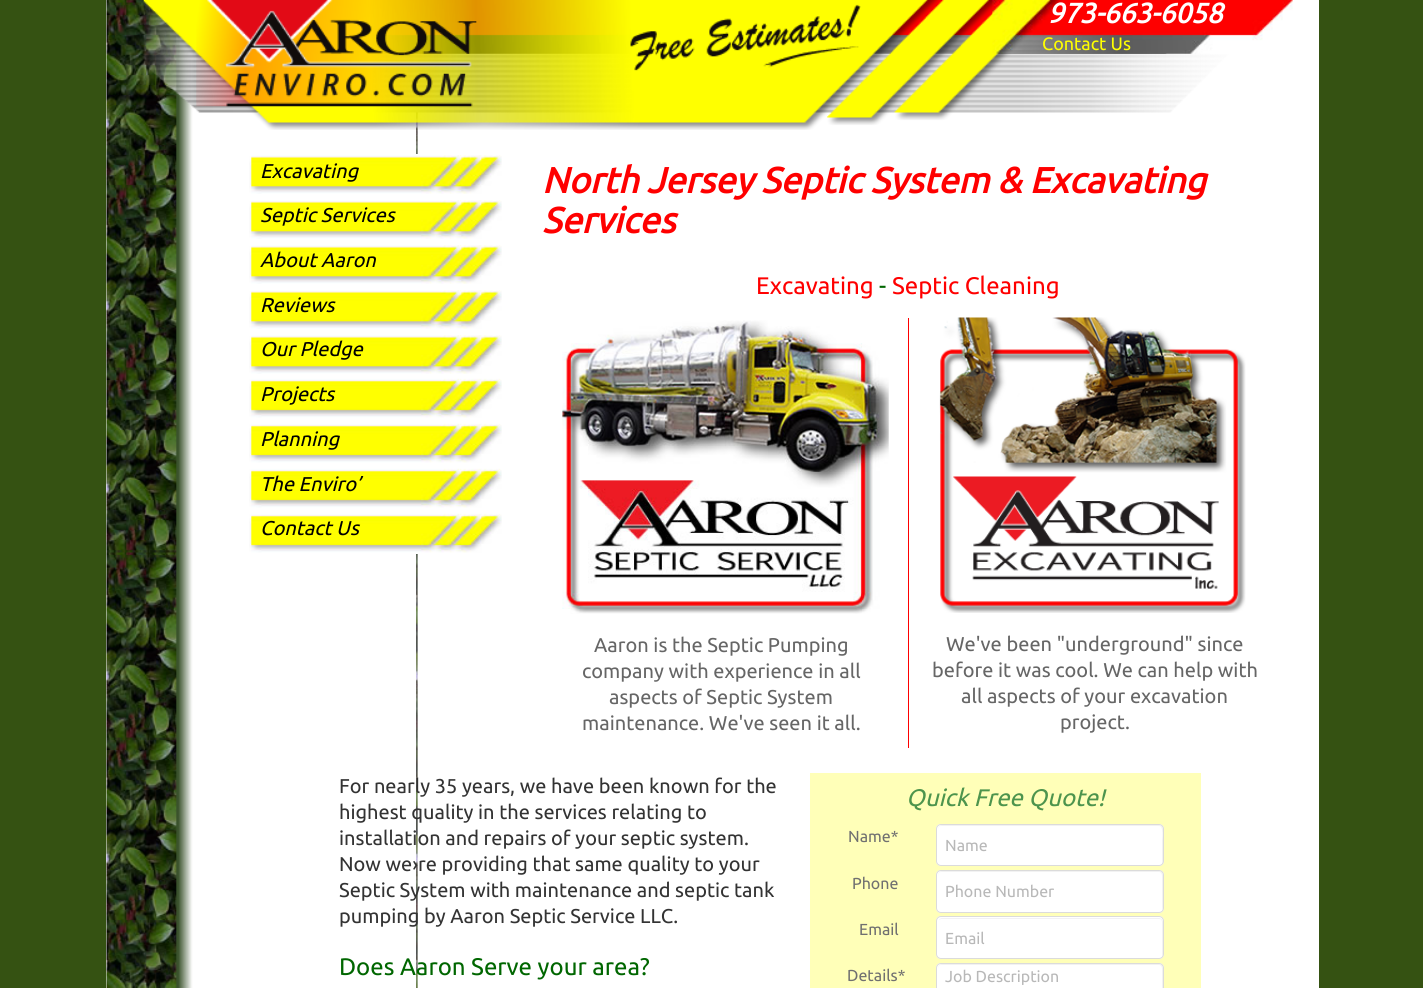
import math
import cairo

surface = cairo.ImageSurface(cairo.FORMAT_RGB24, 1423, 988)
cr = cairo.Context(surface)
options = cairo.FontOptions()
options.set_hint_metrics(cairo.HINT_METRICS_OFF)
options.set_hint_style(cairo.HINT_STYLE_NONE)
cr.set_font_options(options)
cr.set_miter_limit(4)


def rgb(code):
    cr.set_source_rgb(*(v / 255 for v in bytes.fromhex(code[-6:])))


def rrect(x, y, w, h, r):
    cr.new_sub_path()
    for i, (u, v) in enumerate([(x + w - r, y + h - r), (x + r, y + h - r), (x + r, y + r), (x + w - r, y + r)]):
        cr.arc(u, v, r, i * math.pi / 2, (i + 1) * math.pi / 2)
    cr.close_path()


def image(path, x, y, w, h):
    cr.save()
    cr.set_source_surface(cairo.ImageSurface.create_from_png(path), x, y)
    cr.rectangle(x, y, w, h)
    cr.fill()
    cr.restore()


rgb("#355212")
cr.paint()
rgb("#ffffff")
cr.rectangle(106, 0, 1213, 988)
cr.fill()
image("img/1.png", 106, 0, 312, 988)
image("img/2.png", 143, 0, 1087, 130)
image("img/3.png", 196, 0, 281, 107)
image("img/4.png", 992, 0, 301, 54)
cr.rectangle(416, 154, 2, 400)
cr.fill()
image("img/5.png", 249, 155, 253, 39)
image("img/5.png", 249, 200, 253, 39)
image("img/6.png", 249, 245, 253, 39)
image("img/7.png", 249, 290, 253, 39)
image("img/8.png", 249, 335, 253, 39)
image("img/9.png", 249, 378, 253, 40)
image("img/9.png", 249, 423, 253, 40)
image("img/10.png", 249, 468, 253, 40)
image("img/11.png", 249, 513, 253, 40)
image("img/12.png", 562, 320, 327, 294)
rgb("#ff0000")
cr.rectangle(908, 318, 1, 430)
cr.fill()
image("img/13.png", 939, 317, 307, 296)
rgb("#ffffb8")
cr.rectangle(810, 773, 391, 215)
cr.fill()
rgb("#ffffff")
rrect(936, 824, 228, 42, 5)
cr.fill()
rgb("#f2f2f2")
cr.new_path()
cr.move_to(941, 826)
cr.line_to(1159, 826)
cr.curve_to(1164, 826, 1162, 839, 1162, 841)
cr.line_to(1162, 864)
cr.curve_to(1163, 863, 1163, 862, 1163, 861)
cr.line_to(1163, 829)
cr.curve_to(1163, 827, 1161, 825, 1159, 825)
cr.line_to(942, 825)
cr.curve_to(940, 825, 938, 827, 938, 829)
cr.line_to(938, 830)
cr.curve_to(938, 828, 939, 826, 941, 826)
cr.close_path()
cr.fill()
rrect(936.5, 824.5, 227, 41, 4.5)
rgb("#dbdbdb")
cr.set_line_width(1)
cr.stroke()
rgb("#ffffff")
rrect(936, 870, 228, 43, 5)
cr.fill()
rgb("#f2f2f2")
cr.new_path()
cr.move_to(941, 872)
cr.line_to(1159, 872)
cr.curve_to(1161, 872, 1162, 874, 1162, 876)
cr.line_to(1162, 910)
cr.curve_to(1163, 909, 1163, 908, 1163, 907)
cr.line_to(1163, 875)
cr.curve_to(1163, 873, 1161, 871, 1159, 871)
cr.line_to(942, 871)
cr.curve_to(940, 871, 938, 873, 938, 875)
cr.line_to(938, 876)
cr.curve_to(938, 874, 939, 872, 941, 872)
cr.close_path()
cr.fill()
rrect(936.5, 870.5, 227, 42, 4.5)
rgb("#dbdbdb")
cr.stroke()
rgb("#ffffff")
rrect(936, 916, 228, 43, 5)
cr.fill()
rgb("#f2f2f2")
cr.new_path()
cr.move_to(941, 919)
cr.line_to(1159, 919)
cr.curve_to(1161, 919, 1162, 920, 1162, 922)
cr.line_to(1162, 957)
cr.curve_to(1162, 956, 1163, 955, 1163, 954)
cr.line_to(1163, 922)
cr.curve_to(1163, 920, 1161, 918, 1159, 918)
cr.line_to(942, 918)
cr.curve_to(941, 918, 939, 919, 939, 920)
cr.close_path()
cr.fill()
rrect(936.5, 916.5, 227, 42, 4.5)
rgb("#dbdbdb")
cr.stroke()
rgb("#ffffff")
rrect(936, 963, 228, 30, 5)
cr.fill()
rgb("#f2f2f2")
cr.new_path()
cr.move_to(941, 965)
cr.line_to(1159, 965)
cr.curve_to(1161, 965, 1162, 967, 1162, 969)
cr.line_to(1162, 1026)
cr.line_to(1162, 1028)
cr.curve_to(1162, 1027, 1163, 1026, 1163, 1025)
cr.line_to(1163, 968)
cr.curve_to(1163, 966, 1161, 964, 1159, 964)
cr.line_to(942, 964)
cr.curve_to(940, 964, 938, 966, 938, 968)
cr.line_to(938, 969)
cr.curve_to(938, 967, 939, 965, 941, 965)
cr.close_path()
cr.fill()
rrect(936.5, 963.5, 227, 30, 4.5)
rgb("#dbdbdb")
cr.stroke()
cr.select_font_face("Ubuntu", cairo.FONT_SLANT_ITALIC, cairo.FONT_WEIGHT_BOLD)
cr.set_font_size(28)
rgb("#ffffff")
cr.move_to(1048, 23)
cr.show_text("973-663-6058")
cr.select_font_face("Ubuntu")
cr.set_font_size(18)
rgb("#ffff00")
cr.move_to(1042, 50)
cr.show_text("Contact Us")
cr.select_font_face("Ubuntu", cairo.FONT_SLANT_ITALIC)
cr.set_font_size(20)
rgb("#000000")
for x, y, s in [
    (260, 178, "Excavating"),
    (260, 222, "Septic Services"),
    (260, 267, "About Aaron"),
    (260, 312, "Reviews"),
    (260, 356, "Our Pledge"),
    (260, 401, "Projects"),
    (260, 446, "Planning"),
    (260, 491, "The Enviro’"),
    (260, 535, "Contact Us"),
]:
    cr.move_to(x, y)
    cr.show_text(s)
cr.select_font_face("Ubuntu", cairo.FONT_SLANT_ITALIC, cairo.FONT_WEIGHT_BOLD)
cr.set_font_size(36)
rgb("#ff0000")
cr.move_to(542, 193)
cr.show_text("North Jersey Septic System & Excavating")
cr.move_to(542, 233)
cr.show_text("Services")
cr.select_font_face("Ubuntu")
cr.set_font_size(24)
cr.move_to(756, 294)
cr.show_text("Excavating")
rgb("#006600")
cr.move_to(879, 294)
cr.show_text("-")
rgb("#ff0000")
cr.move_to(892, 294)
cr.show_text("Septic Cleaning")
cr.set_font_size(20)
rgb("#666666")
for x, y, s in [
    (594, 652, "Aaron is the Septic Pumping"),
    (582, 678, "company with experience in all"),
    (609, 704, "aspects of Septic System"),
    (582, 730, "maintenance. We've seen it all."),
    (946, 651, "We've been \"underground\" since"),
    (932, 677, "before it was cool. We can help with"),
    (961, 703, "all aspects of your excavation"),
    (1060, 729, "project."),
]:
    cr.move_to(x, y)
    cr.show_text(s)
rgb("#333333")
for x, y, s in [
    (339, 793, "For nearly 35 years, we have been known for the"),
    (339, 819, "highest quality in the services relating to"),
    (339, 845, "installation and repairs of your septic system."),
    (339, 871, "Now we›re providing that same quality to your"),
    (339, 897, "Septic System with maintenance and septic tank"),
    (339, 923, "pumping by Aaron Septic Service LLC."),
]:
    cr.move_to(x, y)
    cr.show_text(s)
cr.set_font_size(24)
rgb("#006600")
cr.move_to(339, 975)
cr.show_text("Does Aaron Serve your area?")
cr.select_font_face("Ubuntu", cairo.FONT_SLANT_ITALIC)
rgb("#4d944d")
cr.move_to(906, 806)
cr.show_text("Quick Free Quote!")
cr.select_font_face("Ubuntu")
cr.set_font_size(16)
rgb("#707070")
cr.move_to(848, 842)
cr.show_text("Name*")
rgb("#b8b8b8")
cr.move_to(945, 851)
cr.show_text("Name")
rgb("#707070")
cr.move_to(852, 889)
cr.show_text("Phone")
rgb("#b8b8b8")
cr.move_to(945, 897)
cr.show_text("Phone Number")
rgb("#707070")
cr.move_to(859, 935)
cr.show_text("Email")
rgb("#b8b8b8")
cr.move_to(945, 944)
cr.show_text("Email")
rgb("#707070")
cr.move_to(847, 981)
cr.show_text("Details*")
rgb("#b8b8b8")
cr.move_to(945, 982)
cr.show_text("Job Description")
surface.write_to_png("page.png")
